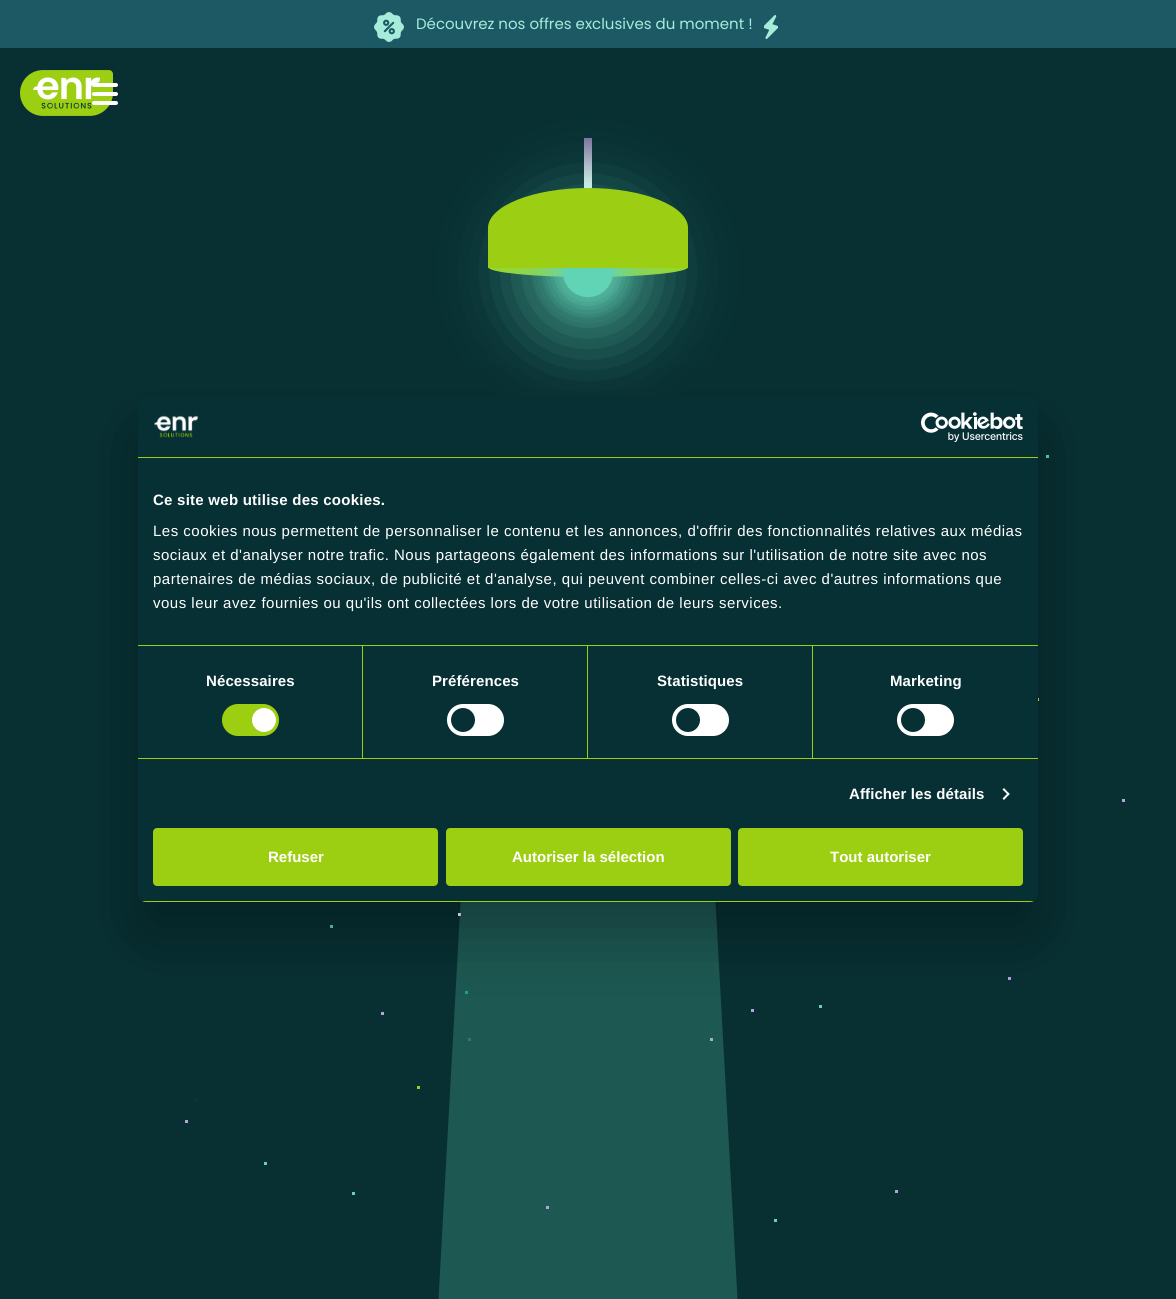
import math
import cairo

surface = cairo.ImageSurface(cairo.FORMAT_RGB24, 1176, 1299)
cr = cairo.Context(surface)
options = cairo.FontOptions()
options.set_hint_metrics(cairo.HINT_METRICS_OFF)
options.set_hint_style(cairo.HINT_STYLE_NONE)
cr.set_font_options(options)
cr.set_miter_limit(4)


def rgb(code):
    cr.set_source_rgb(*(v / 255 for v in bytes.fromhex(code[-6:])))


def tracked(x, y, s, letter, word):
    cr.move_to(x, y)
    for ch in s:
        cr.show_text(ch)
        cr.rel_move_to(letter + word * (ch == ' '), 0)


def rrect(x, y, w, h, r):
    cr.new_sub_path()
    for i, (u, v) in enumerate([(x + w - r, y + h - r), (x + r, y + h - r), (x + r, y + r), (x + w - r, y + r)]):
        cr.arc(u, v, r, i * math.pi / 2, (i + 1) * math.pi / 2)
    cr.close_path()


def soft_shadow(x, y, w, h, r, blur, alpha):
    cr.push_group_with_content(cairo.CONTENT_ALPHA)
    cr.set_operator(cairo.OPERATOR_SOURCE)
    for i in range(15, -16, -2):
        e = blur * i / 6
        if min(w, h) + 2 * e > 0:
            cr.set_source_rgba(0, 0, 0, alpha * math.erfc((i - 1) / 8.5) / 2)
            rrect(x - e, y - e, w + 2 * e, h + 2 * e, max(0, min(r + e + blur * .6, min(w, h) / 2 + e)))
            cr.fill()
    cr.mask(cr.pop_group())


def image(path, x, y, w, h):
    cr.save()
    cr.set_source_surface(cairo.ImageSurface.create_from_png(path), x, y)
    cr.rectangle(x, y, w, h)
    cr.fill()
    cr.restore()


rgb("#083033")
cr.paint()
rgb("#1d5965")
cr.rectangle(0, 0, 1176, 48)
cr.fill()
image("img/1.png", 374, 12, 30, 30)
image("img/2.png", 764, 15, 14, 24)
image("img/3.png", 20, 70, 93, 46)
rgb("#ffffff")
rrect(92, 83, 26, 4, 2)
cr.fill()
rrect(92, 92, 26, 4, 2)
cr.fill()
rrect(92, 101, 26, 4, 2)
cr.fill()
rgb("#a2d51b")
cr.new_path()
cr.move_to(588, 257)
cr.curve_to(643, 257, 688, 261.5, 688, 267)
cr.curve_to(688, 272.5, 643, 277, 588, 277)
cr.curve_to(533, 277, 488, 272.5, 488, 267)
cr.curve_to(488, 261.5, 533, 257, 588, 257)
cr.close_path()
cr.fill()
gradient = cairo.LinearGradient(588, 138, 588, 188)
gradient.add_color_stop_rgba(0, 0.494, 0.451, 0.62, 1)
gradient.add_color_stop_rgba(1, 0.875, 0.965, 0.941, 1)
cr.set_source(gradient)
cr.rectangle(584, 138, 8, 50)
cr.fill()
rgb("#62d4b6")
soft_shadow(548, 232, 80, 80, 40, 15, 0.2)
soft_shadow(516, 200, 144, 144, 72, 32, 0.5)
soft_shadow(556, 240, 64, 64, 32, 12.5, 0.8)
rgb("#62d4b6")
cr.arc(588, 272, 25, 0, 2 * math.pi)
cr.fill()
rgb("#9ccf13")
cr.new_path()
cr.move_to(588, 188)
cr.curve_to(643, 188, 688, 206, 688, 228)
cr.line_to(688, 268)
cr.line_to(488, 268)
cr.line_to(488, 228)
cr.curve_to(488, 206, 533, 188, 588, 188)
cr.close_path()
cr.fill()
for x, y, w, h, color in [
    (465, 991, 3, 3, "#009688"),
    (458, 913, 3, 3, "#ffffff"),
    (710, 1038, 3, 3, "#b3a3e0"),
    (546, 1206, 3, 3, "#b3a3e0"),
    (468, 1038, 3, 3, "#1d5965"),
]:
    rgb(color)
    cr.rectangle(x, y, w, h)
    cr.fill()
cr.set_source_rgba(0.384, 0.831, 0.714, 0.24)
cr.new_path()
cr.move_to(738, 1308)
cr.line_to(713, 858)
cr.line_to(463, 858)
cr.line_to(438, 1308)
cr.close_path()
cr.fill()
for x, y, w, h, color in [
    (381, 1012, 3, 3, "#b3a3e0"),
    (1122, 799, 3, 3, "#b3a3e0"),
    (264, 1162, 3, 3, "#61d4b5"),
    (1036, 698, 3, 3, "#cddc39"),
    (417, 1086, 3, 3, "#9ccf13"),
    (330, 925, 3, 3, "#61d4b5"),
    (1008, 977, 3, 3, "#b3a3e0"),
    (819, 1005, 3, 3, "#61d4b5"),
    (774, 1219, 3, 3, "#61d4b5"),
    (185, 1120, 3, 3, "#b3a3e0"),
    (895, 1190, 3, 3, "#b3a3e0"),
    (1046, 455, 3, 3, "#61d4b5"),
    (194, 1098, 3, 3, "#123336"),
    (751, 1009, 3, 3, "#b3a3e0"),
    (352, 1192, 3, 3, "#61d4b5"),
]:
    rgb(color)
    cr.rectangle(x, y, w, h)
    cr.fill()
rgb("#000000")
soft_shadow(138, 429, 900, 505, 8, 34, 0.3)
rgb("#073034")
rrect(138, 397, 900, 505, 8)
cr.fill()
rgb("#9cce11")
cr.rectangle(138, 457, 900, 1)
cr.fill()
image("img/4.png", 154, 415, 45, 23)
image("img/5.png", 921, 412, 102, 30)
for x, y, w, h, color in [
    (138, 645, 900, 1, "#9cce11"),
    (138, 758, 900, 1, "#9cce11"),
    (362, 646, 1, 112, "#9cce11"),
]:
    rgb(color)
    cr.rectangle(x, y, w, h)
    cr.fill()
rrect(222, 704, 57, 32, 16)
cr.fill()
rgb("#ffffff")
cr.arc(264, 720, 12, 0, 2 * math.pi)
cr.fill()
rgb("#9cce11")
cr.rectangle(587, 646, 1, 112)
cr.fill()
rgb("#ffffff")
rrect(447, 704, 57, 32, 16)
cr.fill()
rgb("#073034")
cr.arc(463, 720, 12, 0, 2 * math.pi)
cr.fill()
rgb("#9cce11")
cr.rectangle(812, 646, 1, 112)
cr.fill()
rgb("#ffffff")
rrect(672, 704, 57, 32, 16)
cr.fill()
rgb("#073034")
cr.arc(688, 720, 12, 0, 2 * math.pi)
cr.fill()
rgb("#ffffff")
rrect(897, 704, 57, 32, 16)
cr.fill()
rgb("#073034")
cr.arc(913, 720, 12, 0, 2 * math.pi)
cr.fill()
rgb("#ffffff")
cr.new_path()
cr.move_to(1004, 788)
cr.line_to(1009.5, 794)
cr.line_to(1008.5, 795.5)
cr.line_to(1002.5, 789.5)
cr.close_path()
cr.fill()
cr.new_path()
cr.move_to(1008.5, 792.5)
cr.line_to(1009.5, 794)
cr.line_to(1004, 800)
cr.line_to(1002.5, 798.5)
cr.close_path()
cr.fill()
cr.save()
rrect(138, 397, 900, 505, 8)
cr.clip()
rgb("#9cce11")
cr.rectangle(138, 901, 900, 1)
cr.fill()
cr.restore()
rgb("#9cce11")
rrect(154, 829, 283, 56, 3)
cr.fill_preserve()
cr.stroke()
rrect(447, 829, 283, 56, 3)
cr.fill_preserve()
cr.stroke()
rrect(739, 829, 283, 56, 3)
cr.fill_preserve()
cr.stroke()
cr.select_font_face("Poppins")
cr.set_font_size(15)
rgb("#a5edda")
cr.move_to(416, 29)
cr.show_text("Découvrez nos offres exclusives du moment !")
cr.select_font_face("Liberation Sans", cairo.FONT_SLANT_NORMAL, cairo.FONT_WEIGHT_BOLD)
rgb("#ffffff")
tracked(153, 505, "Ce site web utilise des cookies.", 0.25, 0)
cr.select_font_face("Liberation Sans")
for x, y, s in [
    (153, 536, "Les cookies nous permettent de personnaliser le contenu et les annonces, d'offrir des fonctionnalités relatives aux médias"),
    (153, 560, "sociaux et d'analyser notre trafic. Nous partageons également des informations sur l'utilisation de notre site avec nos"),
    (153, 584, "partenaires de médias sociaux, de publicité et d'analyse, qui peuvent combiner celles-ci avec d'autres informations que"),
    (153, 608, "vous leur avez fournies ou qu'ils ont collectées lors de votre utilisation de leurs services."),
]:
    tracked(x, y, s, 0.5, 0)
cr.select_font_face("Liberation Sans", cairo.FONT_SLANT_NORMAL, cairo.FONT_WEIGHT_BOLD)
for x, y, s in [
    (206, 686, "Nécessaires"),
    (432, 686, "Préférences"),
    (657, 686, "Statistiques"),
    (890, 686, "Marketing"),
    (849, 799, "Afficher les détails"),
]:
    tracked(x, y, s, 0.1, 0)
for x, y, s in [
    (268, 862, "Refuser"),
    (512, 862, "Autoriser la sélection"),
    (830, 862, "Tout autoriser"),
]:
    cr.move_to(x, y)
    cr.show_text(s)
surface.write_to_png("page.png")
